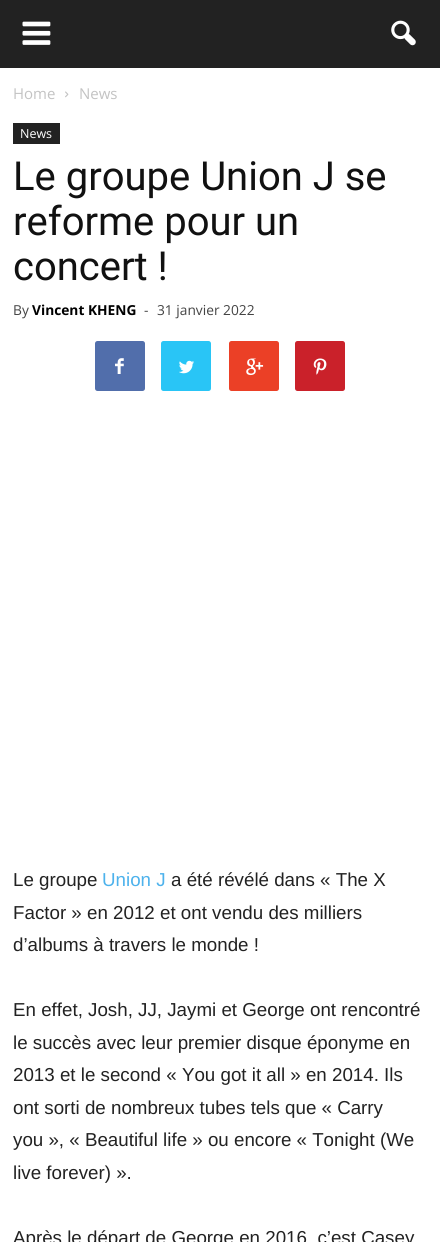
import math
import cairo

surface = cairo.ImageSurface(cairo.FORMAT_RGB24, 440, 1242)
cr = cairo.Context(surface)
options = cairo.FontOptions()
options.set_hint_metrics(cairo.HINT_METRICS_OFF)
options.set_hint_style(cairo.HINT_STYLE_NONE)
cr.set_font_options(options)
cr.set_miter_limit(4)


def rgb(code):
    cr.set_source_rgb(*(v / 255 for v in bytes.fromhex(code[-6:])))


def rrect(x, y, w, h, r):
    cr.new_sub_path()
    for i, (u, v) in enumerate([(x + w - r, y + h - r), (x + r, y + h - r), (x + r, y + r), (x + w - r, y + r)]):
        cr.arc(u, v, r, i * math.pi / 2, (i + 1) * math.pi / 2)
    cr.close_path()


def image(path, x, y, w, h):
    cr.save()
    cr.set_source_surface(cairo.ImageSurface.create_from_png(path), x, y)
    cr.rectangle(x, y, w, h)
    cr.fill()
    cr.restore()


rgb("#ffffff")
cr.paint()
rgb("#222222")
cr.rectangle(0, 0, 440, 68)
cr.fill()
image("img/1.png", 22, 21, 29, 24)
image("img/2.png", 391, 20, 25, 26)
image("img/3.png", 65, 91, 4, 7)
cr.rectangle(13, 123, 47, 21)
cr.fill()
rgb("#516eab")
rrect(95, 341, 50, 50, 2.5)
cr.fill()
image("img/4.png", 115, 358, 9, 16)
rgb("#29c5f6")
rrect(161, 341, 50, 50, 2.5)
cr.fill()
image("img/5.png", 179, 360, 15, 14)
rgb("#eb4026")
rrect(229, 341, 50, 50, 2.5)
cr.fill()
image("img/6.png", 246, 358, 18, 18)
rgb("#ca212a")
rrect(295, 341, 50, 50, 2.5)
cr.fill()
image("img/7.png", 313, 358, 14, 17)
cr.select_font_face("Open Sans")
cr.set_font_size(15)
rgb("#c3c3c3")
cr.move_to(13, 99)
cr.show_text("Home")
cr.move_to(79, 99)
cr.show_text("News")
cr.set_font_size(12.5)
rgb("#ffffff")
cr.move_to(20, 138)
cr.show_text("News")
cr.select_font_face("Roboto")
cr.set_font_size(40)
rgb("#111111")
for x, y, s in [
    (13, 190, "Le groupe Union J se"),
    (13, 235, "reforme pour un"),
    (13, 280, "concert !"),
]:
    cr.move_to(x, y)
    cr.show_text(s)
cr.select_font_face("Open Sans")
cr.set_font_size(13.75)
rgb("#444444")
cr.move_to(13, 315)
cr.show_text("By")
cr.select_font_face("Open Sans", cairo.FONT_SLANT_NORMAL, cairo.FONT_WEIGHT_BOLD)
rgb("#000000")
cr.move_to(32, 315)
cr.show_text("Vincent KHENG")
cr.select_font_face("Open Sans")
rgb("#444444")
cr.move_to(144, 315)
cr.show_text("-")
cr.move_to(157, 315)
cr.show_text("31 janvier 2022")
cr.select_font_face("Liberation Sans")
cr.set_font_size(18.75)
rgb("#222222")
cr.move_to(13, 886)
cr.show_text("Le groupe")
rgb("#4db2ec")
cr.move_to(102, 886)
cr.show_text("Union J")
rgb("#222222")
for x, y, s in [
    (171, 886, "a été révélé dans « The X"),
    (13, 919, "Factor » en 2012 et ont vendu des milliers"),
    (13, 951, "d’albums à travers le monde !"),
    (13, 1016, "En effet, Josh, JJ, Jaymi et George ont rencontré"),
    (13, 1049, "le succès avec leur premier disque éponyme en"),
    (13, 1081, "2013 et le second « You got it all » en 2014. Ils"),
    (13, 1114, "ont sorti de nombreux tubes tels que « Carry"),
    (13, 1146, "you », « Beautiful life » ou encore « Tonight (We"),
    (13, 1179, "live forever) »."),
    (13, 1244, "Après le départ de George en 2016, c’est Casey"),
]:
    cr.move_to(x, y)
    cr.show_text(s)
surface.write_to_png("page.png")
